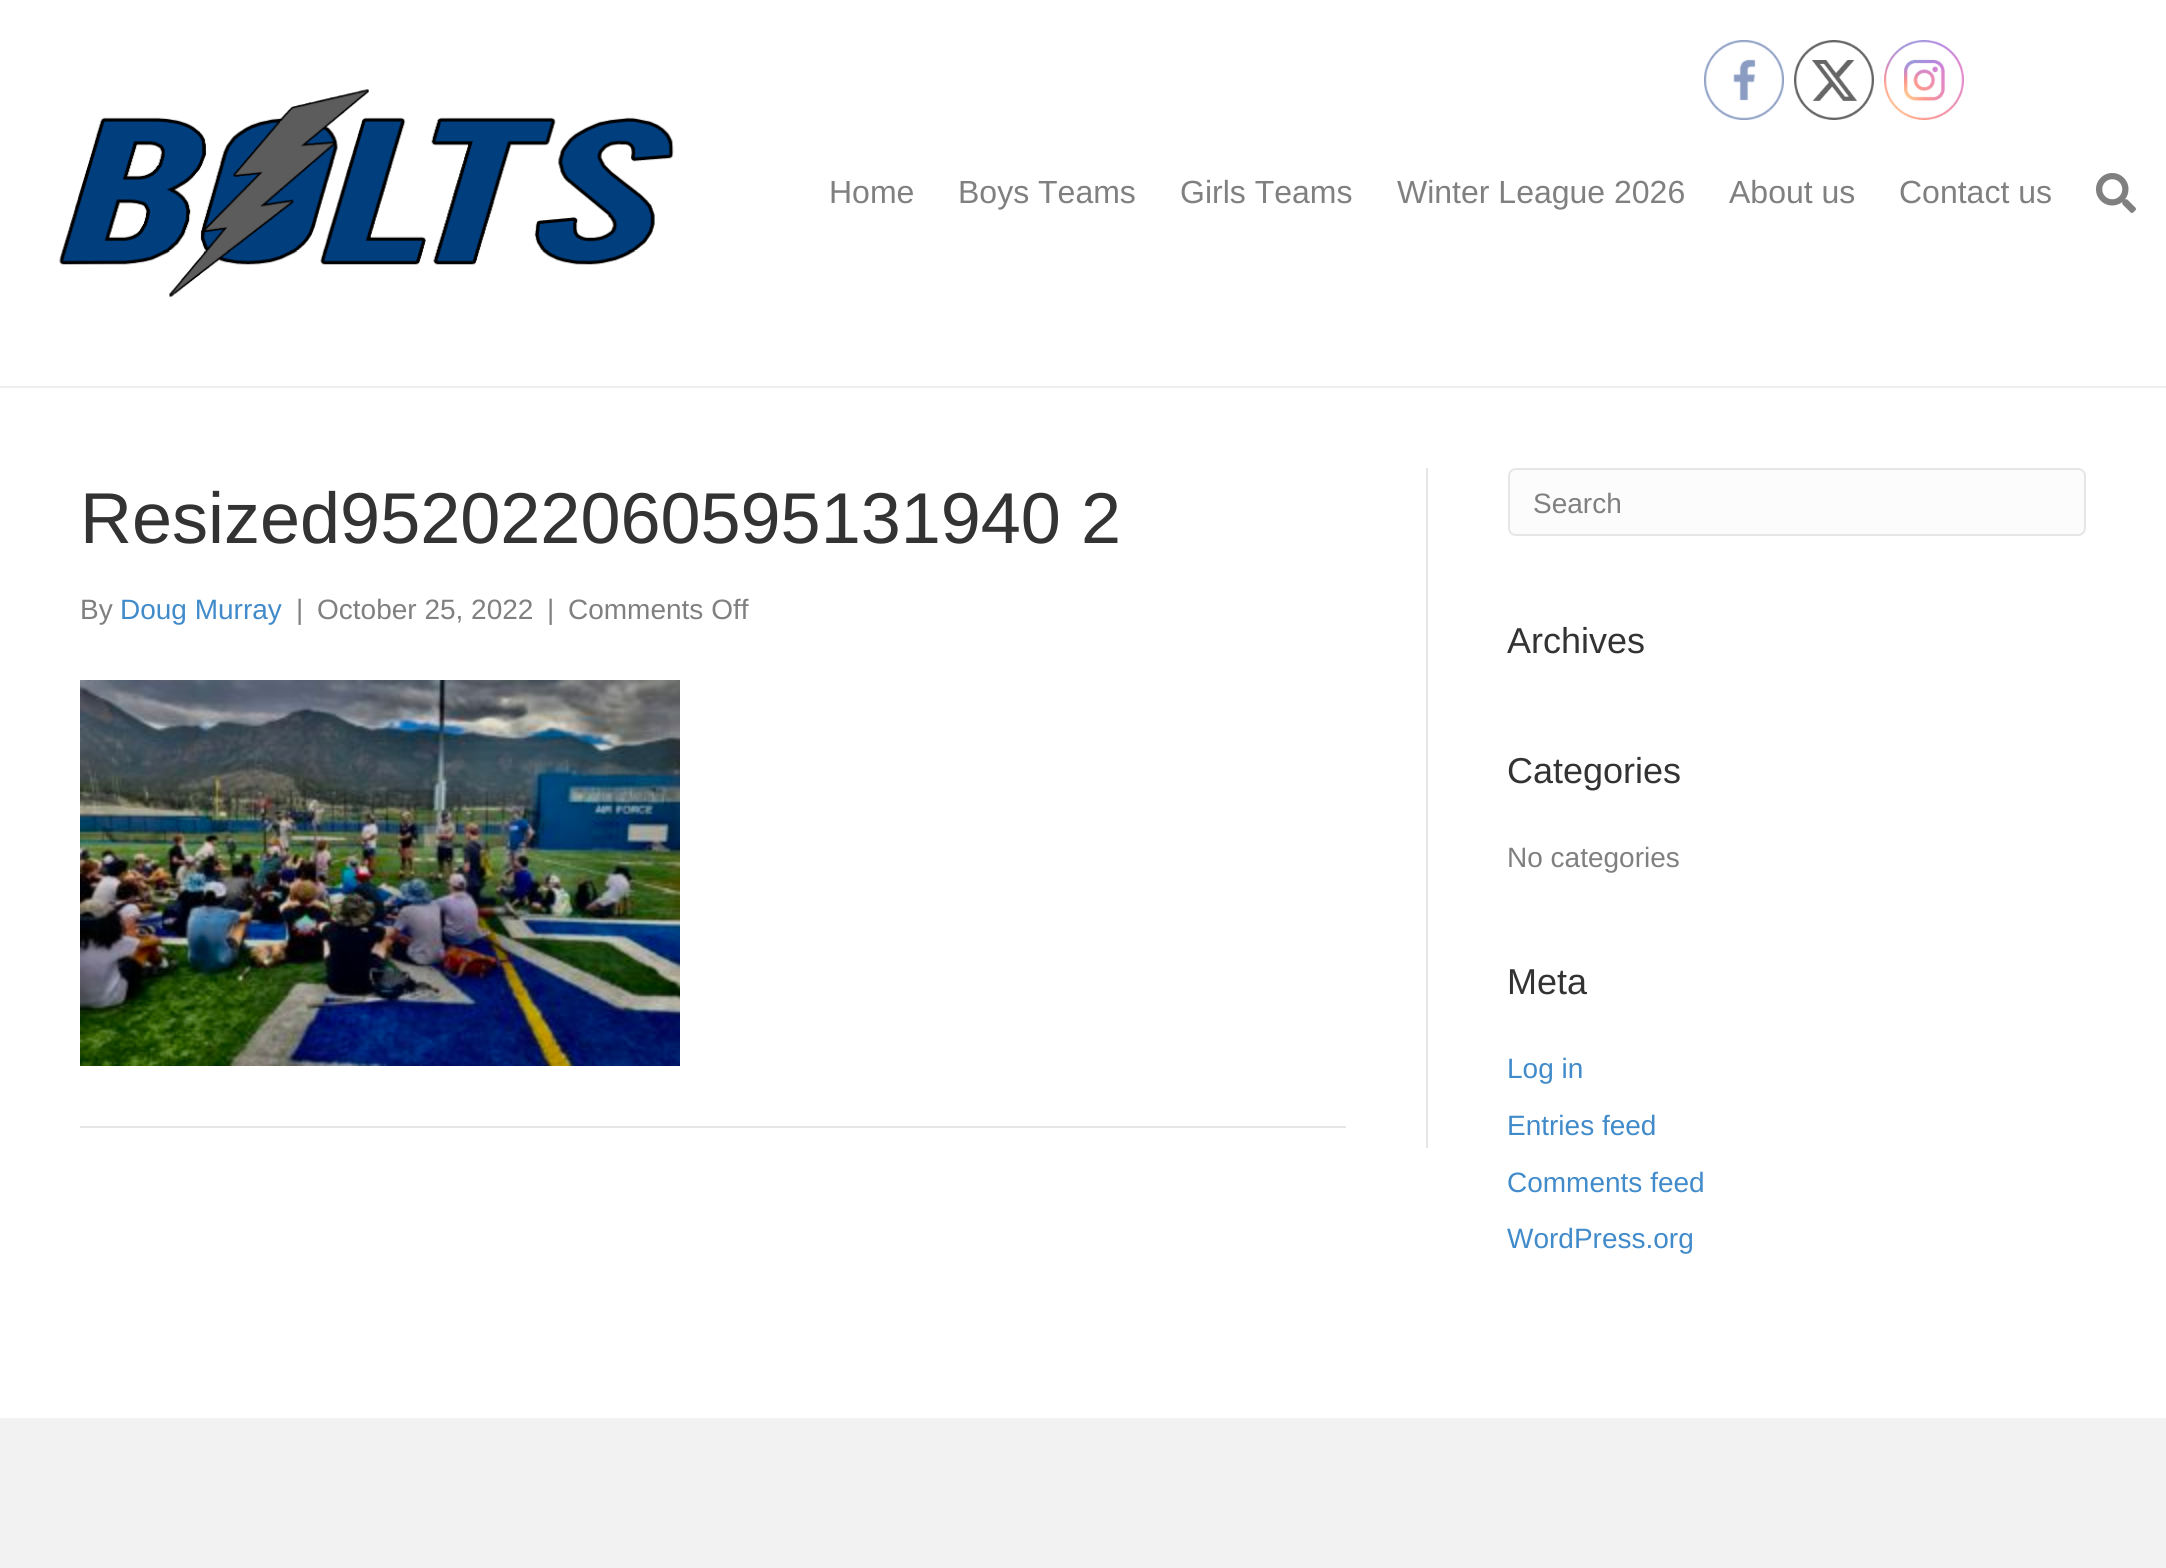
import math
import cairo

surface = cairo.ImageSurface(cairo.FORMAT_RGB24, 2166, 1568)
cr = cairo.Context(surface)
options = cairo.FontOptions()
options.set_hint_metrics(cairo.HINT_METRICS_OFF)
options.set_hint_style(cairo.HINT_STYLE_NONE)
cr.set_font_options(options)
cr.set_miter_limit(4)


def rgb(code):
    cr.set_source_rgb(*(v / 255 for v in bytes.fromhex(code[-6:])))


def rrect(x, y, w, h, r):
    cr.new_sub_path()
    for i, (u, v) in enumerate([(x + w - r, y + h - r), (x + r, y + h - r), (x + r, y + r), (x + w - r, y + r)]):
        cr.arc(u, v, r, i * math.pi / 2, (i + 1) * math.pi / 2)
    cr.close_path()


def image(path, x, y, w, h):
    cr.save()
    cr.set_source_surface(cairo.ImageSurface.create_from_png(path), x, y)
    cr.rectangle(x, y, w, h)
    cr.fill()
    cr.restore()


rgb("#f2f2f2")
cr.paint()
rgb("#ffffff")
cr.rectangle(0, 0, 2166, 386)
cr.fill()
image("img/1.png", 1704, 40, 80, 80)
image("img/2.png", 1794, 40, 80, 80)
image("img/3.png", 1884, 40, 80, 80)
rgb("#eeeeee")
cr.rectangle(0, 386, 2166, 2)
cr.fill()
image("img/4.png", 59, 89, 615, 208)
image("img/5.png", 2096, 173, 40, 40)
rgb("#ffffff")
cr.rectangle(0, 388, 2166, 1030)
cr.fill()
rgb("#e6e6e6")
cr.rectangle(1426, 468, 2, 680)
cr.fill()
image("img/6.png", 80, 680, 600, 386)
cr.rectangle(80, 1126, 1266, 2)
cr.fill()
rgb("#fcfcfc")
rrect(1509, 469, 576, 66, 7)
cr.fill_preserve()
rgb("#e6e6e6")
cr.stroke()
cr.select_font_face("Liberation Sans")
cr.set_font_size(32)
rgb("#808080")
for x, y, s in [
    (829, 203, "Home"),
    (958, 203, "Boys Teams"),
    (1180, 203, "Girls Teams"),
    (1397, 203, "Winter League 2026"),
    (1729, 203, "About us"),
    (1899, 203, "Contact us"),
]:
    cr.move_to(x, y)
    cr.show_text(s)
cr.set_font_size(72)
rgb("#333333")
cr.move_to(80, 543)
cr.show_text("Resized952022060595131940 2")
cr.set_font_size(28)
rgb("#808080")
cr.move_to(80, 619)
cr.show_text("By")
rgb("#428bca")
cr.move_to(120, 619)
cr.show_text("Doug Murray")
rgb("#808080")
for x, y, s in [
    (296, 619, "|"),
    (317, 619, "October 25, 2022"),
    (547, 619, "|"),
    (568, 619, "Comments Off"),
    (1533, 513, "Search"),
]:
    cr.move_to(x, y)
    cr.show_text(s)
cr.set_font_size(36)
rgb("#333333")
cr.move_to(1507, 653)
cr.show_text("Archives")
cr.move_to(1507, 783)
cr.show_text("Categories")
cr.set_font_size(28)
rgb("#808080")
cr.move_to(1507, 867)
cr.show_text("No categories")
cr.set_font_size(36)
rgb("#333333")
cr.move_to(1507, 994)
cr.show_text("Meta")
cr.set_font_size(28)
rgb("#428bca")
for x, y, s in [
    (1507, 1078, "Log in"),
    (1507, 1135, "Entries feed"),
    (1507, 1192, "Comments feed"),
    (1507, 1248, "WordPress.org"),
]:
    cr.move_to(x, y)
    cr.show_text(s)
surface.write_to_png("page.png")
